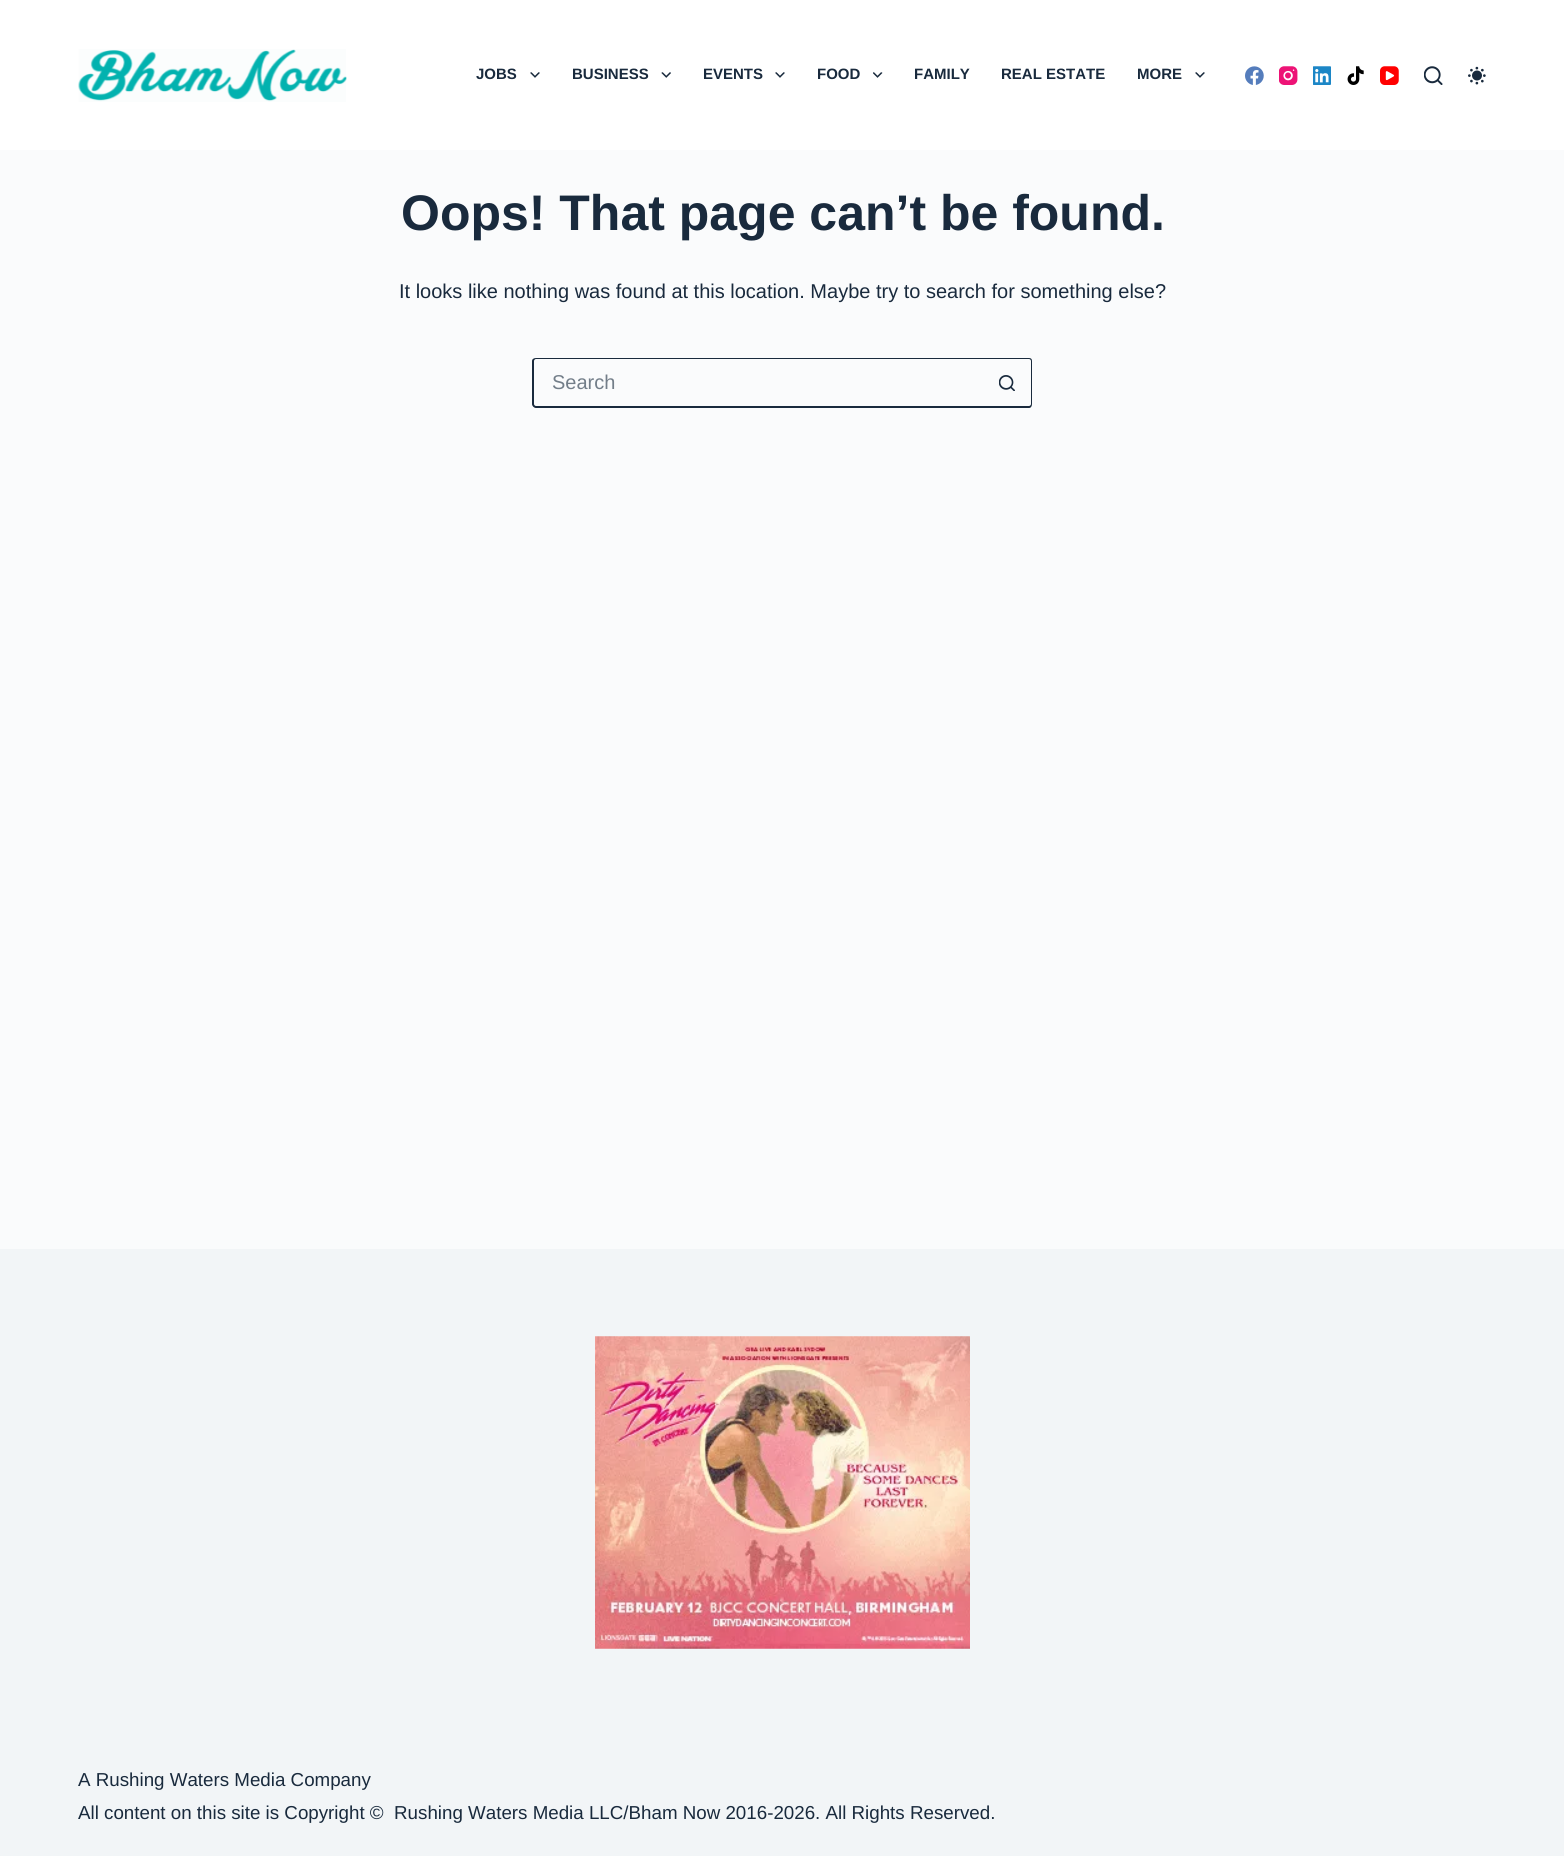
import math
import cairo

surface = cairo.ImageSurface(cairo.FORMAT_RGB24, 1564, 1856)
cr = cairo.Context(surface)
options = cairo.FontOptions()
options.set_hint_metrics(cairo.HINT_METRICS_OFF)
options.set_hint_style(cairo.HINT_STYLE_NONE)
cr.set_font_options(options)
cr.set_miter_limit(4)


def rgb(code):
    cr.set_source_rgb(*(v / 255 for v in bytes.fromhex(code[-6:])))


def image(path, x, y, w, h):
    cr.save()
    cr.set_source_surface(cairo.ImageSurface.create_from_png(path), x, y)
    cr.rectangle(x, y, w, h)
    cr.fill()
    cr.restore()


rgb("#fafbfc")
cr.paint()
rgb("#ffffff")
cr.rectangle(0, 0, 1564, 150)
cr.fill()
image("img/1.png", 78, 49, 269, 53)
image("img/2.png", 530, 72, 10, 6)
image("img/3.png", 661, 72, 10, 6)
image("img/2.png", 775, 72, 10, 6)
image("img/4.png", 873, 72, 10, 6)
image("img/2.png", 1195, 72, 10, 6)
image("img/5.png", 1245, 66, 19, 19)
image("img/6.png", 1279, 66, 19, 19)
image("img/7.png", 1313, 66, 18, 19)
image("img/8.png", 1347, 66, 17, 19)
image("img/9.png", 1380, 66, 19, 19)
image("img/10.png", 1424, 66, 19, 19)
image("img/11.png", 1468, 66, 18, 19)
rgb("#192a3d")
cr.set_fill_rule(cairo.FILL_RULE_EVEN_ODD)
cr.new_path()
cr.move_to(536, 358)
cr.line_to(982, 358)
cr.line_to(982, 408)
cr.line_to(536, 408)
cr.curve_to(534, 408, 532, 406, 532, 404)
cr.line_to(532, 361)
cr.curve_to(532, 359, 534, 358, 536, 358)
cr.close_path()
cr.move_to(536, 359)
cr.line_to(982, 359)
cr.line_to(982, 406)
cr.line_to(536, 406)
cr.curve_to(535, 406, 534, 405, 534, 404)
cr.line_to(534, 361)
cr.curve_to(534, 360, 535, 359, 536, 359)
cr.close_path()
cr.fill()
cr.new_path()
cr.move_to(982, 358)
cr.line_to(1029, 358)
cr.curve_to(1031, 358, 1032, 359, 1032, 361)
cr.line_to(1032, 404)
cr.curve_to(1032, 406, 1031, 408, 1029, 408)
cr.line_to(982, 408)
cr.close_path()
cr.move_to(982, 359)
cr.line_to(1029, 359)
cr.curve_to(1030, 359, 1031, 360, 1031, 361)
cr.line_to(1031, 404)
cr.curve_to(1031, 405, 1030, 406, 1029, 406)
cr.line_to(982, 406)
cr.close_path()
cr.fill()
image("img/12.png", 999, 375, 16, 16)
rgb("#f2f5f7")
cr.rectangle(0, 1249, 1564, 607)
cr.fill()
image("img/13.png", 595, 1336, 375, 313)
cr.select_font_face("Liberation Sans", cairo.FONT_SLANT_NORMAL, cairo.FONT_WEIGHT_BOLD)
cr.set_font_size(15)
rgb("#192a3d")
for x, y, s in [
    (476, 79, "JOBS"),
    (572, 79, "BUSINESS"),
    (703, 79, "EVENTS"),
    (817, 79, "FOOD"),
    (914, 79, "FAMILY"),
    (1001, 79, "REAL ESTATE"),
    (1137, 79, "MORE"),
]:
    cr.move_to(x, y)
    cr.show_text(s)
cr.set_font_size(50)
cr.move_to(401, 230)
cr.show_text("Oops! That page can’t be found.")
cr.select_font_face("Liberation Sans")
cr.set_font_size(20)
cr.move_to(399, 298)
cr.show_text("It looks like nothing was found at this location. Maybe try to search for something else?")
rgb("#737e89")
cr.move_to(552, 389)
cr.show_text("Search")
cr.set_font_size(18.75)
rgb("#192a3d")
cr.move_to(78, 1786)
cr.show_text("A Rushing Waters Media Company")
cr.move_to(78, 1819)
cr.show_text("All content on this site is Copyright ©  Rushing Waters Media LLC/Bham Now 2016-2026. All Rights Reserved.")
surface.write_to_png("page.png")
